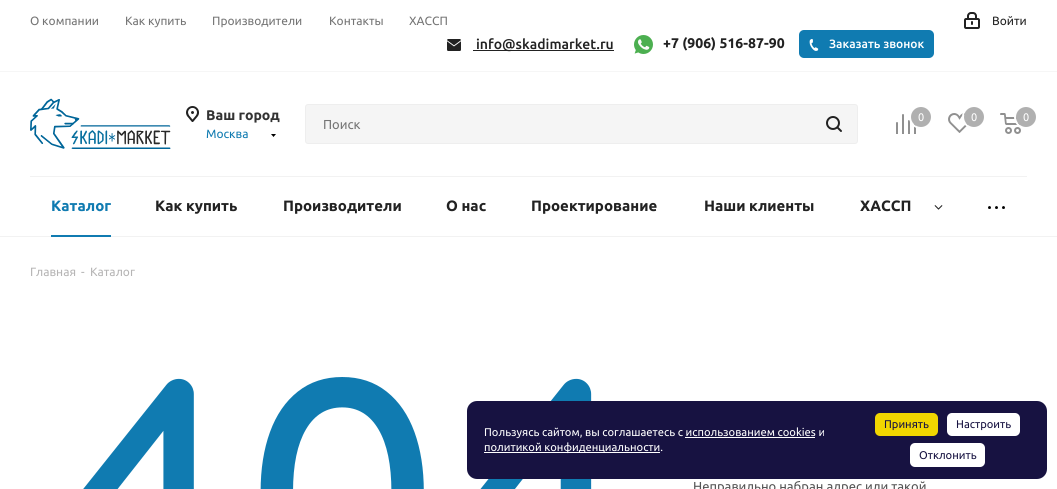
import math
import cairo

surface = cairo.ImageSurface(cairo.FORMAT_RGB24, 1057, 489)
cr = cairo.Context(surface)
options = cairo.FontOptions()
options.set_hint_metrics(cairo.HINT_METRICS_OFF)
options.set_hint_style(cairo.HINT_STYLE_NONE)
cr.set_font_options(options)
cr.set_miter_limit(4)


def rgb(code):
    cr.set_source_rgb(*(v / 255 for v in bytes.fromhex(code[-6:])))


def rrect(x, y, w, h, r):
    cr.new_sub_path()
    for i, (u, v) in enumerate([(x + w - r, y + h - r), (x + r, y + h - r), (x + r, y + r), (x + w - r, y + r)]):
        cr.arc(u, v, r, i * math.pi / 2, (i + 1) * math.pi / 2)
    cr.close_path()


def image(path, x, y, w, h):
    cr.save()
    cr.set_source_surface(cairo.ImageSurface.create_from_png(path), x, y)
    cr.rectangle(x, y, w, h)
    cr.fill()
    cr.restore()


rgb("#ffffff")
cr.paint()
rgb("#f6f6f6")
cr.rectangle(0, 71, 1057, 1)
cr.fill()
image("img/1.png", 964, 12, 16, 17)
image("img/2.png", 447, 39, 14, 12)
rgb("#222222")
cr.rectangle(473, 50, 141, 1)
cr.fill()
image("img/3.png", 634, 35, 19, 19)
rgb("#107bb1")
rrect(799, 30, 135, 28, 5)
cr.fill()
image("img/4.png", 809, 39, 10, 12)
image("img/5.png", 30, 98, 141, 51)
image("img/6.png", 186, 106, 13, 16)
image("img/7.png", 271, 134, 5, 3)
image("img/8.png", 896, 114, 20, 20)
cr.arc(921, 117, 11, 0, 2 * math.pi)
rgb("#ffffff")
cr.stroke()
rgb("#b0b0b0")
cr.arc(921, 117, 10, 0, 2 * math.pi)
cr.fill()
image("img/9.png", 948, 113, 20, 20)
cr.arc(974, 117, 11, 0, 2 * math.pi)
rgb("#ffffff")
cr.stroke()
rgb("#b0b0b0")
cr.arc(974, 117, 10, 0, 2 * math.pi)
cr.fill()
image("img/10.png", 1000, 113, 21, 21)
cr.arc(1026, 117, 11, 0, 2 * math.pi)
rgb("#ffffff")
cr.stroke()
rgb("#b0b0b0")
cr.arc(1026, 117, 10, 0, 2 * math.pi)
cr.fill()
rgb("#f5f5f5")
rrect(305.5, 104.5, 552, 39, 2.5)
cr.fill_preserve()
rgb("#eeeeee")
cr.set_line_width(1)
cr.stroke()
image("img/11.png", 826, 116, 16, 16)
for x, y, w, h, color in [
    (30, 176, 997, 1, "#f2f2f2"),
    (0, 236, 1057, 1, "#f2f2f2"),
    (51, 235, 60, 2, "#107bb1"),
]:
    rgb(color)
    cr.rectangle(x, y, w, h)
    cr.fill()
image("img/12.png", 934, 205, 9, 5)
rgb("#000000")
cr.rectangle(988, 206, 17, 3)
cr.fill()
image("img/13.png", 988, 206, 17, 3)
image("img/14.png", 83, 377, 509, 112)
rgb("#171241")
rrect(467, 401, 580, 78, 10)
cr.fill()
rgb("#ffffff")
cr.rectangle(685, 437, 130, 1)
cr.fill()
cr.rectangle(484, 452, 176, 1)
cr.fill()
rgb("#f1d600")
rrect(875, 413, 63, 23, 5)
cr.fill()
rgb("#ffffff")
rrect(947, 413, 73, 23, 5)
cr.fill()
rrect(910, 443, 75, 24, 5)
cr.fill()
cr.select_font_face("Ubuntu")
cr.set_font_size(12)
rgb("#757575")
for x, y, s in [
    (30, 25, "О компании"),
    (125, 25, "Как купить"),
    (212, 25, "Производители"),
    (329, 25, "Контакты"),
    (409, 25, "ХАССП"),
]:
    cr.move_to(x, y)
    cr.show_text(s)
rgb("#222222")
cr.move_to(992, 25)
cr.show_text("Войти")
cr.select_font_face("Ubuntu Medium")
cr.set_font_size(14)
cr.move_to(476, 49)
cr.show_text("info@skadimarket.ru")
cr.select_font_face("Ubuntu", cairo.FONT_SLANT_NORMAL, cairo.FONT_WEIGHT_BOLD)
cr.move_to(663, 48)
cr.show_text("+7 (906) 516-87-90")
cr.select_font_face("Ubuntu Medium")
cr.set_font_size(12)
rgb("#ffffff")
cr.move_to(829, 48)
cr.show_text("Заказать звонок")
cr.select_font_face("Ubuntu", cairo.FONT_SLANT_NORMAL, cairo.FONT_WEIGHT_BOLD)
cr.set_font_size(14)
rgb("#333333")
cr.move_to(206, 120)
cr.show_text("Ваш город")
cr.select_font_face("Ubuntu")
cr.set_font_size(12)
rgb("#107bb1")
cr.move_to(206, 138)
cr.show_text("Москва")
cr.set_font_size(11)
rgb("#ffffff")
for x, y, s in [
    (918, 121, "0"),
    (971, 121, "0"),
    (1023, 121, "0"),
]:
    cr.move_to(x, y)
    cr.show_text(s)
cr.set_font_size(13)
rgb("#757575")
cr.move_to(323, 129)
cr.show_text("Поиск")
cr.select_font_face("Ubuntu", cairo.FONT_SLANT_NORMAL, cairo.FONT_WEIGHT_BOLD)
cr.set_font_size(15)
rgb("#107bb1")
cr.move_to(51, 211)
cr.show_text("Каталог")
rgb("#222222")
for x, y, s in [
    (155, 211, "Как купить"),
    (283, 211, "Производители"),
    (446, 211, "О нас"),
    (531, 211, "Проектирование"),
    (704, 211, "Наши клиенты"),
    (860, 211, "ХАССП"),
]:
    cr.move_to(x, y)
    cr.show_text(s)
cr.select_font_face("Ubuntu")
cr.set_font_size(12)
rgb("#b6b5b5")
for x, y, s in [
    (30, 276, "Главная"),
    (81, 276, "-"),
    (90, 276, "Каталог"),
]:
    cr.move_to(x, y)
    cr.show_text(s)
cr.set_font_size(13)
rgb("#555555")
cr.move_to(693, 491)
cr.show_text("Неправильно набран адрес или такой")
cr.set_font_size(11.2)
rgb("#ffffff")
cr.move_to(484, 436)
cr.show_text("Пользуясь сайтом, вы соглашаетесь с использованием cookies и")
cr.move_to(484, 451)
cr.show_text("политикой конфиденциальности.")
rgb("#171241")
for x, y, s in [
    (884, 428, "Принять"),
    (956, 428, "Настроить"),
    (919, 459, "Отклонить"),
]:
    cr.move_to(x, y)
    cr.show_text(s)
surface.write_to_png("page.png")
